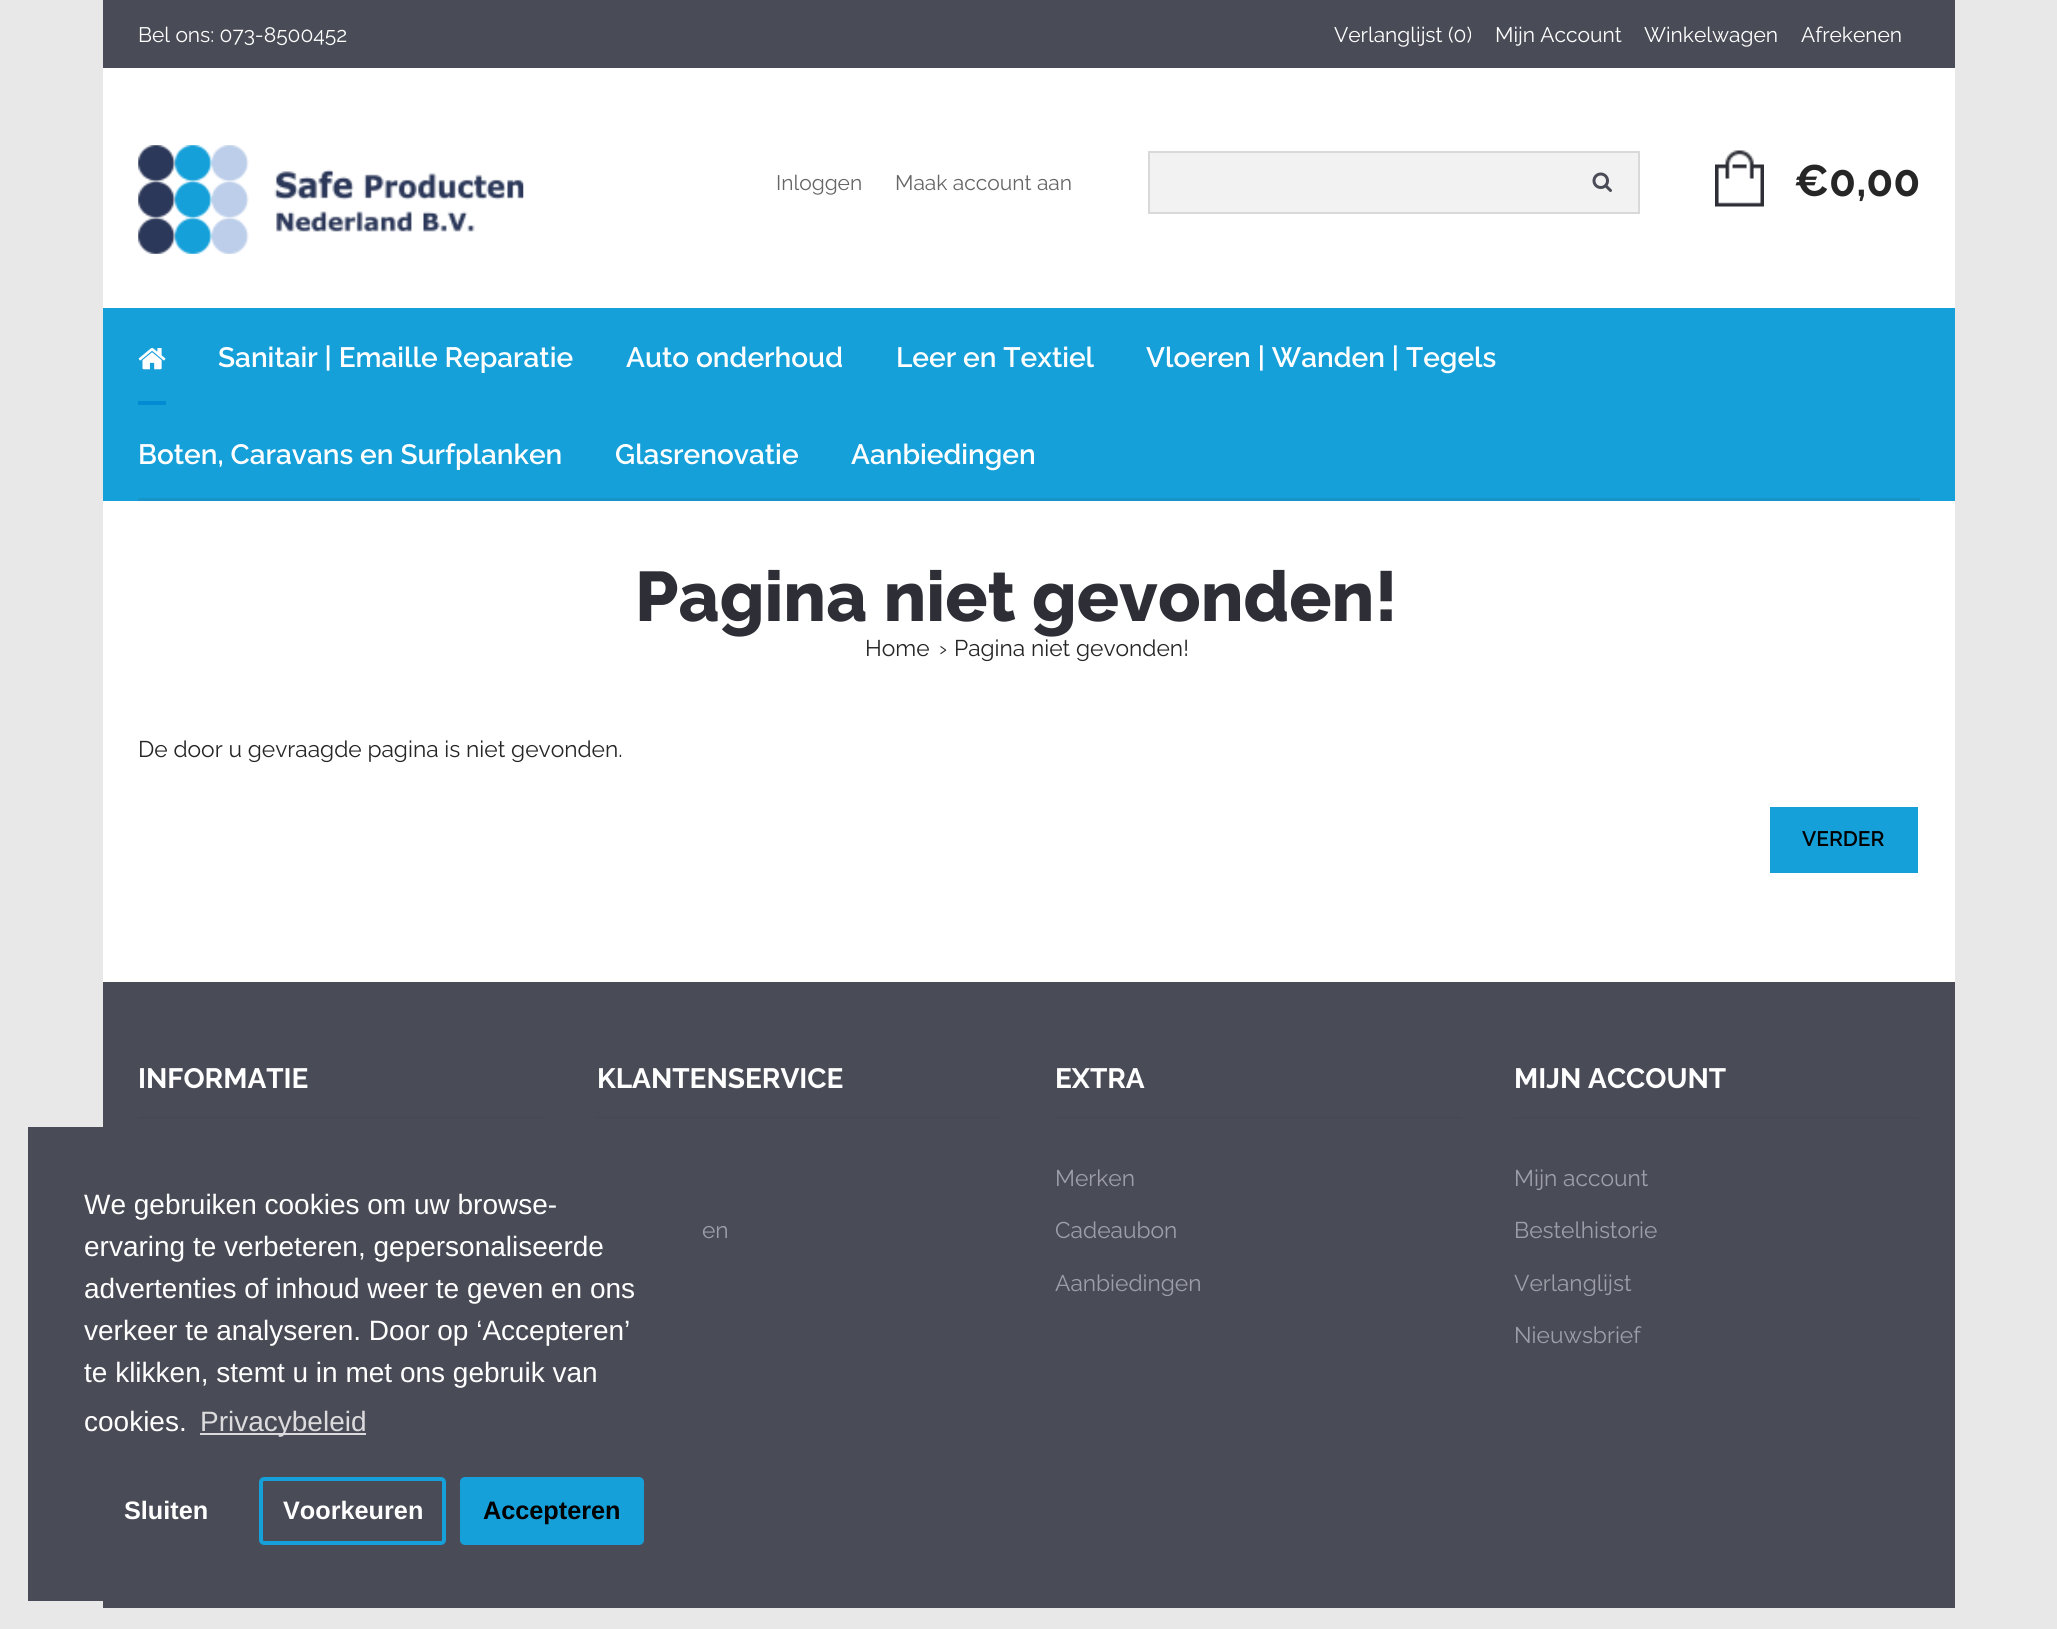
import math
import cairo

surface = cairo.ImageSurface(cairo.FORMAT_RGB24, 2057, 1629)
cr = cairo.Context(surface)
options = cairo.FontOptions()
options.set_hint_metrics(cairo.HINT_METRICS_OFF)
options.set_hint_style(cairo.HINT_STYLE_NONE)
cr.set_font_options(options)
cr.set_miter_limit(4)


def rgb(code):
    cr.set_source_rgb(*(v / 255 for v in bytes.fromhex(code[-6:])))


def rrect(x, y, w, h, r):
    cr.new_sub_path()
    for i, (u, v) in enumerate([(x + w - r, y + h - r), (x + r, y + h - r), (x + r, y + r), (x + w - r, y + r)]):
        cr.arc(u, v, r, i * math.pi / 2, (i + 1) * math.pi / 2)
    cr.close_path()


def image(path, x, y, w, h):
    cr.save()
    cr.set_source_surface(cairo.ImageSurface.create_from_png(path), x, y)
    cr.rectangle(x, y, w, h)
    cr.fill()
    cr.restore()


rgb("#e8e8e8")
cr.paint()
rgb("#ffffff")
cr.rectangle(103, 68, 1852, 914)
cr.fill()
rgb("#494b56")
cr.rectangle(103, 0, 1852, 68)
cr.fill()
image("img/1.png", 138, 145, 386, 109)
rgb("#f2f2f2")
cr.rectangle(1149, 152, 490, 61)
cr.fill_preserve()
rgb("#d9d9d9")
cr.stroke()
image("img/2.png", 1592, 172, 20, 20)
image("img/3.png", 1715, 150, 49, 57)
rgb("#15a0da")
cr.rectangle(103, 308, 1852, 193)
cr.fill()
rgb("#1794c8")
cr.rectangle(138, 498, 1782, 3)
cr.fill()
image("img/4.png", 138, 348, 28, 22)
for x, y, w, h, color in [
    (138, 401, 28, 4, "#008bd2"),
    (1770, 807, 148, 66, "#15a0da"),
    (103, 982, 1852, 626, "#494b56"),
    (139, 1117, 405, 1, "#464751"),
    (597, 1117, 405, 1, "#464751"),
    (1056, 1117, 405, 1, "#464751"),
    (1514, 1117, 405, 1, "#464751"),
    (28, 1127, 75, 474, "#494b56"),
    (200, 1433, 166, 2, "#dbdbdd"),
]:
    rgb(color)
    cr.rectangle(x, y, w, h)
    cr.fill()
rrect(261, 1479, 183, 64, 3)
rgb("#15a0da")
cr.set_line_width(4)
cr.stroke()
rrect(460, 1477, 184, 68, 5)
cr.fill()
cr.select_font_face("Raleway")
cr.set_font_size(21)
rgb("#ffffff")
for x, y, s in [
    (138, 42, "Bel ons: 073-8500452"),
    (1334, 42, "Verlanglijst (0)"),
    (1495, 42, "Mijn Account"),
    (1644, 42, "Winkelwagen"),
    (1801, 42, "Afrekenen"),
]:
    cr.move_to(x, y)
    cr.show_text(s)
rgb("#666666")
cr.move_to(776, 190)
cr.show_text("Inloggen")
cr.move_to(895, 190)
cr.show_text("Maak account aan")
cr.select_font_face("Raleway", cairo.FONT_SLANT_NORMAL, cairo.FONT_WEIGHT_BOLD)
cr.set_font_size(44)
rgb("#262626")
cr.move_to(1794, 196)
cr.show_text("€0,00")
cr.select_font_face("Raleway SemiBold")
cr.set_font_size(28)
rgb("#ffffff")
for x, y, s in [
    (218, 367, "Sanitair | Emaille Reparatie"),
    (626, 367, "Auto onderhoud"),
    (896, 367, "Leer en Textiel"),
    (1146, 367, "Vloeren | Wanden | Tegels"),
    (138, 464, "Boten, Caravans en Surfplanken"),
    (615, 464, "Glasrenovatie"),
    (851, 464, "Aanbiedingen"),
]:
    cr.move_to(x, y)
    cr.show_text(s)
cr.select_font_face("Raleway ExtraBold")
cr.set_font_size(70)
rgb("#2e2f36")
cr.move_to(635, 621)
cr.show_text("Pagina niet gevonden!")
cr.select_font_face("Raleway")
cr.set_font_size(22.75)
rgb("#262626")
for x, y, s in [
    (865, 656, "Home"),
    (939, 656, "›"),
    (954, 656, "Pagina niet gevonden!"),
    (138, 757, "De door u gevraagde pagina is niet gevonden."),
]:
    cr.move_to(x, y)
    cr.show_text(s)
cr.select_font_face("Raleway SemiBold")
cr.set_font_size(21)
rgb("#000000")
cr.move_to(1802, 846)
cr.show_text("VERDER")
cr.select_font_face("Raleway", cairo.FONT_SLANT_NORMAL, cairo.FONT_WEIGHT_BOLD)
cr.set_font_size(28)
rgb("#ffffff")
cr.move_to(138, 1088)
cr.show_text("INFORMATIE")
cr.move_to(597, 1088)
cr.show_text("KLANTENSERVICE")
cr.select_font_face("Raleway")
cr.set_font_size(22.75)
rgb("#9d9ea8")
cr.move_to(702, 1238)
cr.show_text("en")
cr.select_font_face("Raleway", cairo.FONT_SLANT_NORMAL, cairo.FONT_WEIGHT_BOLD)
cr.set_font_size(28)
rgb("#ffffff")
cr.move_to(1055, 1088)
cr.show_text("EXTRA")
cr.select_font_face("Raleway")
cr.set_font_size(22.75)
rgb("#9d9ea8")
for x, y, s in [
    (1055, 1186, "Merken"),
    (1055, 1238, "Cadeaubon"),
    (1055, 1291, "Aanbiedingen"),
]:
    cr.move_to(x, y)
    cr.show_text(s)
cr.select_font_face("Raleway", cairo.FONT_SLANT_NORMAL, cairo.FONT_WEIGHT_BOLD)
cr.set_font_size(28)
rgb("#ffffff")
cr.move_to(1514, 1088)
cr.show_text("MIJN ACCOUNT")
cr.select_font_face("Raleway")
cr.set_font_size(22.75)
rgb("#9d9ea8")
for x, y, s in [
    (1514, 1186, "Mijn account"),
    (1514, 1238, "Bestelhistorie"),
    (1514, 1291, "Verlanglijst"),
    (1514, 1343, "Nieuwsbrief"),
]:
    cr.move_to(x, y)
    cr.show_text(s)
cr.select_font_face("Liberation Sans")
cr.set_font_size(28)
rgb("#ffffff")
for x, y, s in [
    (84, 1214, "We gebruiken cookies om uw browse-"),
    (84, 1256, "ervaring te verbeteren, gepersonaliseerde"),
    (84, 1298, "advertenties of inhoud weer te geven en ons"),
    (84, 1340, "verkeer te analyseren. Door op ‘Accepteren’"),
    (84, 1382, "te klikken, stemt u in met ons gebruik van"),
    (84, 1431, "cookies."),
]:
    cr.move_to(x, y)
    cr.show_text(s)
rgb("#dbdbdd")
cr.move_to(200, 1431)
cr.show_text("Privacybeleid")
cr.select_font_face("Liberation Sans", cairo.FONT_SLANT_NORMAL, cairo.FONT_WEIGHT_BOLD)
cr.set_font_size(25.25)
rgb("#ffffff")
cr.move_to(124, 1519)
cr.show_text("Sluiten")
cr.move_to(283, 1519)
cr.show_text("Voorkeuren")
rgb("#000000")
cr.move_to(483, 1519)
cr.show_text("Accepteren")
surface.write_to_png("page.png")
